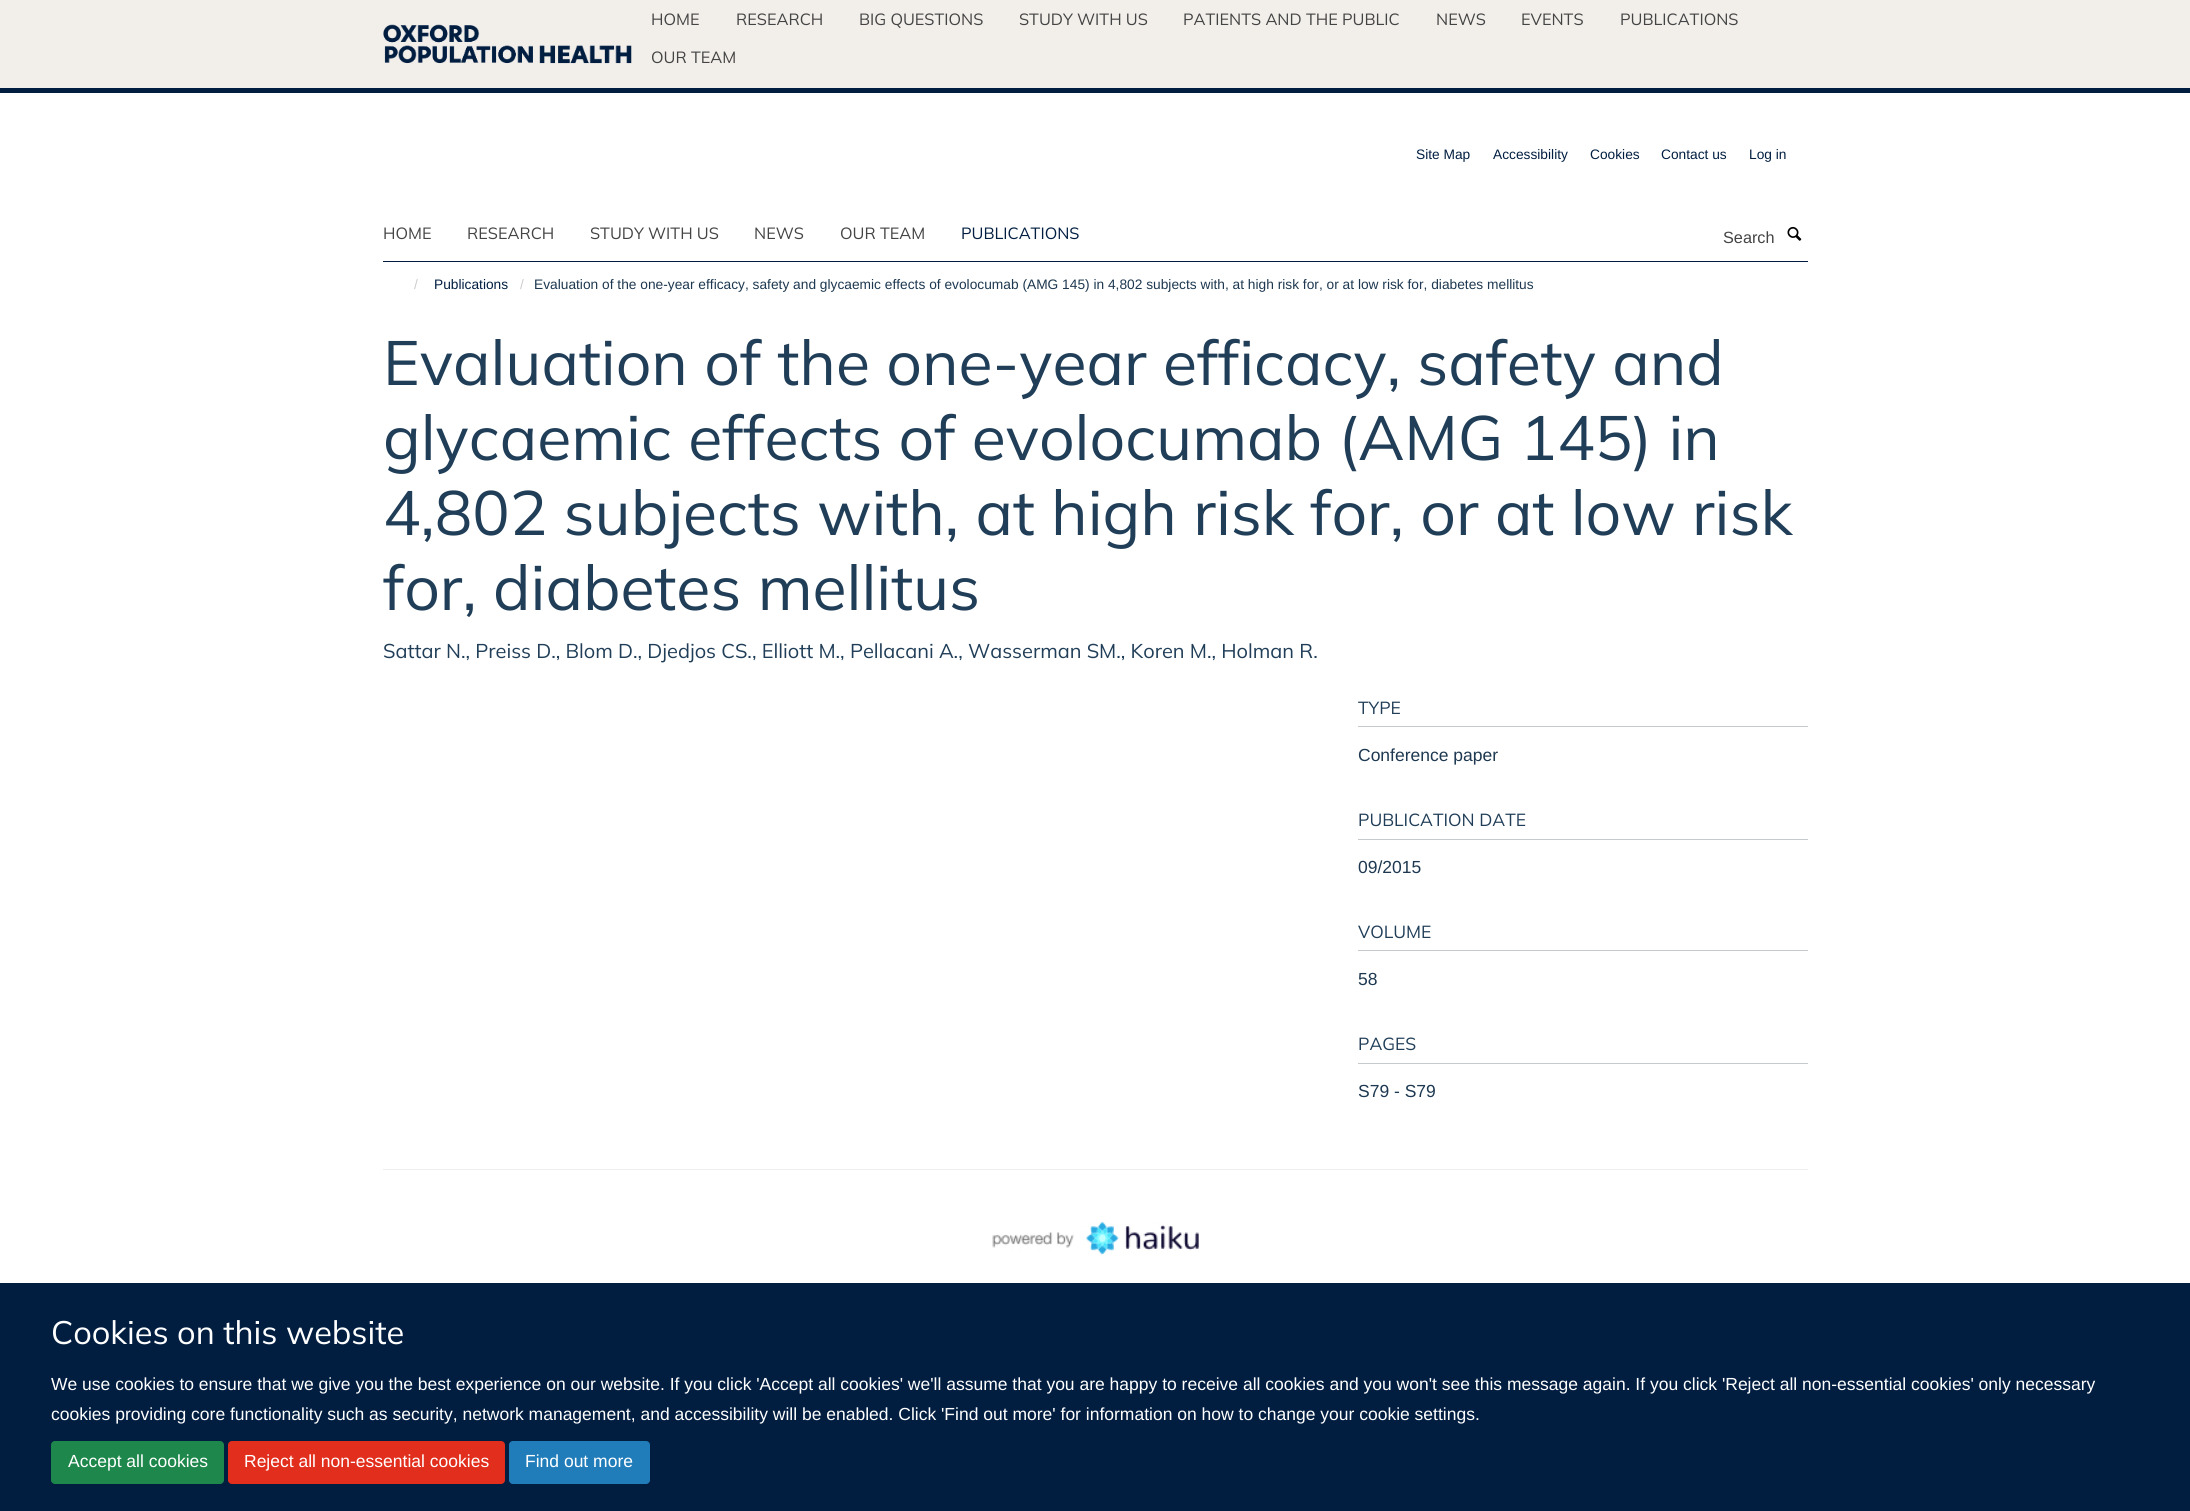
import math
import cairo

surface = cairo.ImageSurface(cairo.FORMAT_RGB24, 2190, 1511)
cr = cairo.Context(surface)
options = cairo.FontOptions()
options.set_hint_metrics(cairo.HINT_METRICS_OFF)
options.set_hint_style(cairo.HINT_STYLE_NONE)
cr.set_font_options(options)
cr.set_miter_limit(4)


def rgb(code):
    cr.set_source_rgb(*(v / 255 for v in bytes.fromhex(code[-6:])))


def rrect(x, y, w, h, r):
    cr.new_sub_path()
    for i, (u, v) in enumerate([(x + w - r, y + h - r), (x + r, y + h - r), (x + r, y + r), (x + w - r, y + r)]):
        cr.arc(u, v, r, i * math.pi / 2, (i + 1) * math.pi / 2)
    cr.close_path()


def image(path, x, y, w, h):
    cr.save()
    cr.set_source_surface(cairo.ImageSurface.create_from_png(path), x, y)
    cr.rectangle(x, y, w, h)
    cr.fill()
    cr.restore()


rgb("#ffffff")
cr.paint()
rgb("#f2efeb")
cr.rectangle(0, 0, 2190, 88)
cr.fill()
rgb("#011e41")
cr.rectangle(0, 88, 2190, 5)
cr.fill()
image("img/1.png", 383, 24, 249, 40)
cr.rectangle(383, 261, 1425, 1)
cr.fill()
image("img/2.png", 1787, 226, 15, 15)
for x, y, w, h, color in [
    (1358, 726, 450, 1, "#c6cacf"),
    (1358, 839, 450, 1, "#c6cacf"),
    (1358, 950, 450, 1, "#c6cacf"),
    (1358, 1063, 450, 1, "#c6cacf"),
    (383, 1169, 1425, 1, "#eeeeee"),
]:
    rgb(color)
    cr.rectangle(x, y, w, h)
    cr.fill()
image("img/3.png", 992, 1221, 207, 34)
rgb("#011e41")
cr.rectangle(0, 1283, 2190, 228)
cr.fill()
rgb("#1e874b")
rrect(51.5, 1441.5, 172, 42, 3.5)
cr.fill_preserve()
cr.set_line_width(1)
cr.stroke()
rgb("#e22e1c")
rrect(228.5, 1441.5, 276, 42, 3.5)
cr.fill_preserve()
cr.stroke()
rgb("#217cba")
rrect(509.5, 1441.5, 140, 42, 3.5)
cr.fill_preserve()
cr.stroke()
cr.select_font_face("Mulish")
cr.set_font_size(16.25)
rgb("#444444")
for x, y, s in [
    (651, 25, "HOME"),
    (736, 25, "RESEARCH"),
    (859, 25, "BIG QUESTIONS"),
    (1019, 25, "STUDY WITH US"),
    (1183, 25, "PATIENTS AND THE PUBLIC"),
    (1436, 25, "NEWS"),
    (1521, 25, "EVENTS"),
    (1620, 25, "PUBLICATIONS"),
    (651, 63, "OUR TEAM"),
]:
    cr.move_to(x, y)
    cr.show_text(s)
cr.select_font_face("Liberation Sans")
cr.set_font_size(13.75)
rgb("#011e41")
for x, y, s in [
    (1416, 159, "Site Map"),
    (1493, 159, "Accessibility"),
    (1590, 159, "Cookies"),
    (1661, 159, "Contact us"),
    (1749, 159, "Log in"),
]:
    cr.move_to(x, y)
    cr.show_text(s)
cr.select_font_face("Mulish")
cr.set_font_size(16.25)
rgb("#444444")
for x, y, s in [
    (383, 239, "HOME"),
    (467, 239, "RESEARCH"),
    (590, 239, "STUDY WITH US"),
    (754, 239, "NEWS"),
    (840, 239, "OUR TEAM"),
]:
    cr.move_to(x, y)
    cr.show_text(s)
rgb("#011e41")
cr.move_to(961, 239)
cr.show_text("PUBLICATIONS")
cr.select_font_face("Liberation Sans")
rgb("#444444")
cr.move_to(1723, 243)
cr.show_text("Search")
cr.set_font_size(13.75)
rgb("#cccccc")
cr.move_to(414, 289)
cr.show_text("/")
rgb("#011e41")
cr.move_to(434, 289)
cr.show_text("Publications")
rgb("#cccccc")
cr.move_to(520, 289)
cr.show_text("/")
rgb("#1d3850")
cr.move_to(534, 289)
cr.show_text("Evaluation of the one-year efficacy, safety and glycaemic effects of evolocumab (AMG 145) in 4,802 subjects with, at high risk for, or at low risk for, diabetes mellitus")
cr.select_font_face("Mulish")
cr.set_font_size(62.5)
rgb("#203e58")
for x, y, s in [
    (383, 385, "Evaluation of the one-year efficacy, safety and"),
    (383, 460, "glycaemic effects of evolocumab (AMG 145) in"),
    (383, 535, "4,802 subjects with, at high risk for, or at low risk"),
    (383, 610, "for, diabetes mellitus"),
]:
    cr.move_to(x, y)
    cr.show_text(s)
cr.set_font_size(20)
cr.move_to(383, 658)
cr.show_text("Sattar N., Preiss D., Blom D., Djedjos CS., Elliott M., Pellacani A., Wasserman SM., Koren M., Holman R.")
cr.set_font_size(17.5)
cr.move_to(1358, 714)
cr.show_text("TYPE")
cr.select_font_face("Liberation Sans")
rgb("#1d3850")
cr.move_to(1358, 761)
cr.show_text("Conference paper")
cr.select_font_face("Mulish")
rgb("#203e58")
cr.move_to(1358, 826)
cr.show_text("PUBLICATION DATE")
cr.select_font_face("Liberation Sans")
rgb("#1d3850")
cr.move_to(1358, 873)
cr.show_text("09/2015")
cr.select_font_face("Mulish")
rgb("#203e58")
cr.move_to(1358, 938)
cr.show_text("VOLUME")
cr.select_font_face("Liberation Sans")
rgb("#1d3850")
cr.move_to(1358, 985)
cr.show_text("58")
cr.select_font_face("Mulish")
rgb("#203e58")
cr.move_to(1358, 1050)
cr.show_text("PAGES")
cr.select_font_face("Liberation Sans")
rgb("#1d3850")
cr.move_to(1358, 1097)
cr.show_text("S79 - S79")
cr.select_font_face("Mulish")
cr.set_font_size(32.5)
rgb("#ffffff")
cr.move_to(51, 1344)
cr.show_text("Cookies on this website")
cr.select_font_face("Liberation Sans")
cr.set_font_size(17.5)
for x, y, s in [
    (51, 1390, "We use cookies to ensure that we give you the best experience on our website. If you click 'Accept all cookies' we'll assume that you are happy to receive all cookies and you won't see this message again. If you click 'Reject all non-essential cookies' only necessary"),
    (51, 1420, "cookies providing core functionality such as security, network management, and accessibility will be enabled. Click 'Find out more' for information on how to change your cookie settings."),
    (68, 1467, "Accept all cookies"),
    (244, 1467, "Reject all non-essential cookies"),
    (525, 1467, "Find out more"),
]:
    cr.move_to(x, y)
    cr.show_text(s)
surface.write_to_png("page.png")
